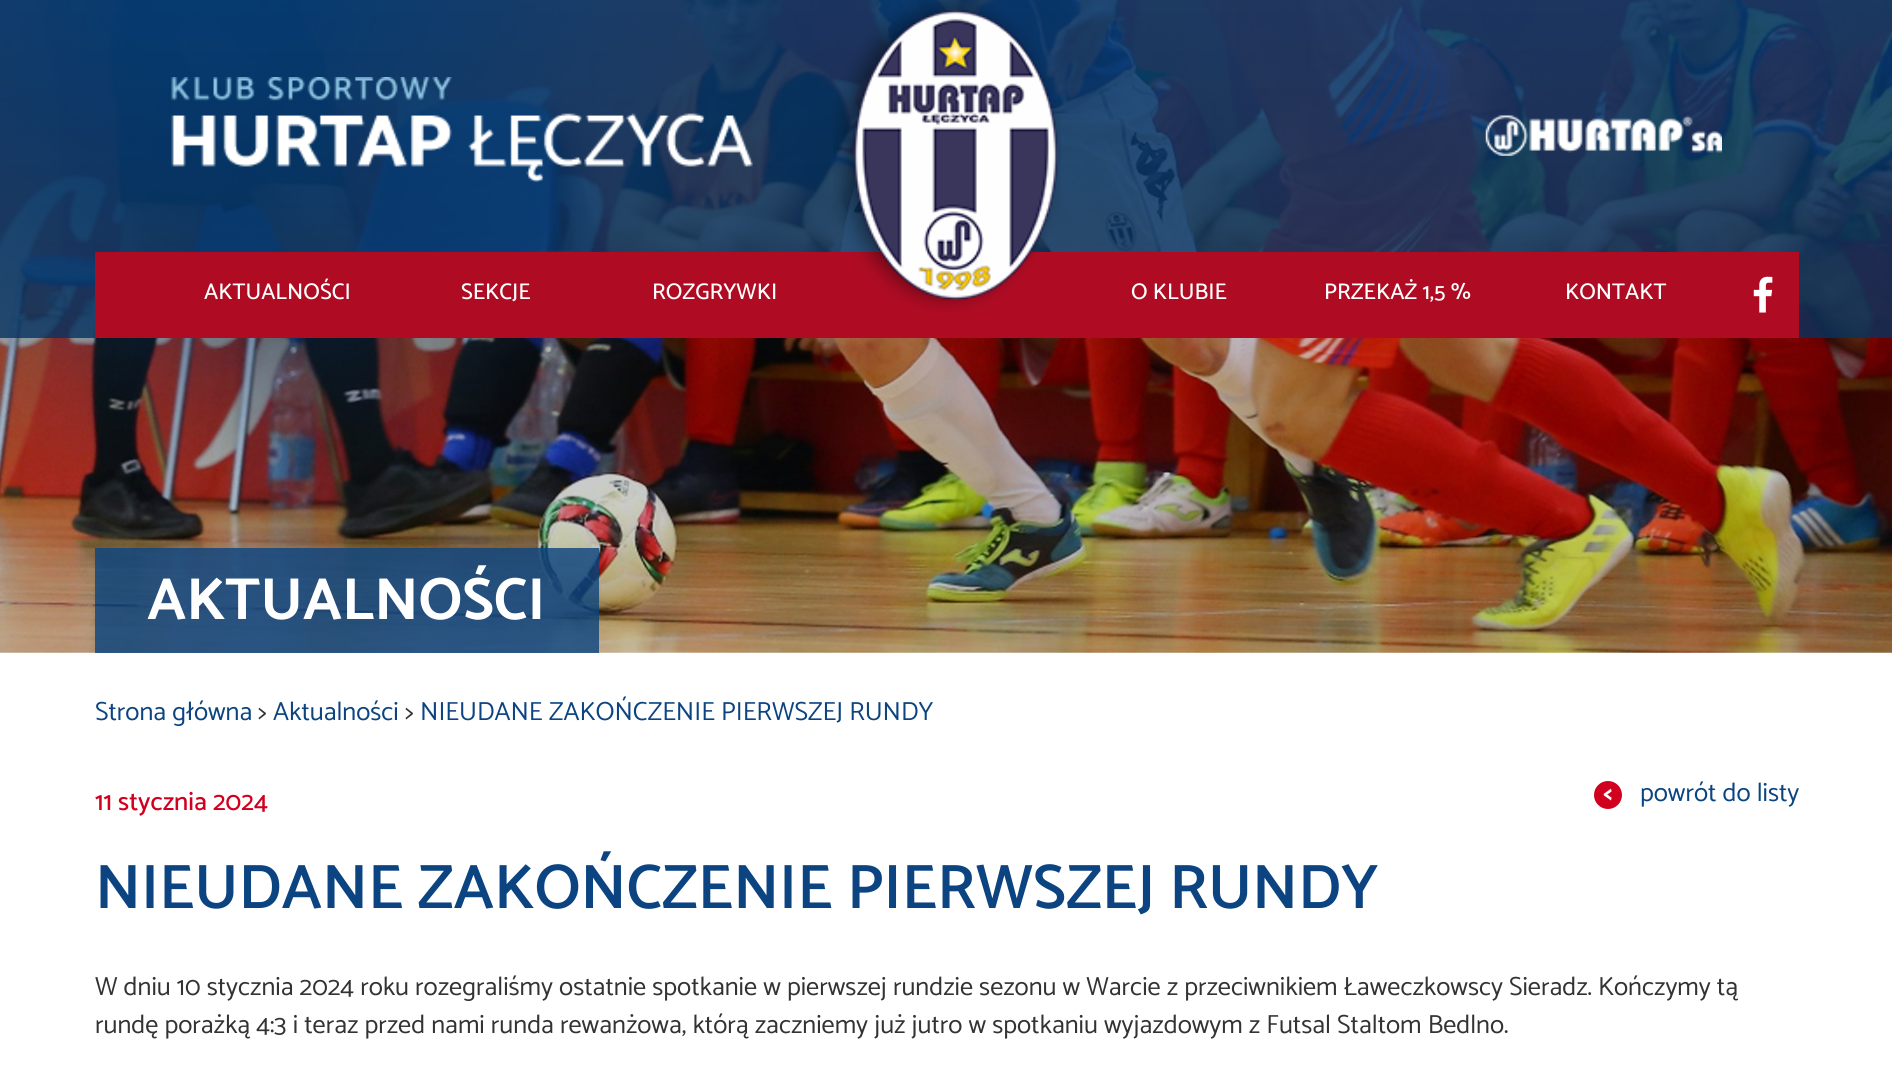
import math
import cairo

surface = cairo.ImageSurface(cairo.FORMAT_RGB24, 1892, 1080)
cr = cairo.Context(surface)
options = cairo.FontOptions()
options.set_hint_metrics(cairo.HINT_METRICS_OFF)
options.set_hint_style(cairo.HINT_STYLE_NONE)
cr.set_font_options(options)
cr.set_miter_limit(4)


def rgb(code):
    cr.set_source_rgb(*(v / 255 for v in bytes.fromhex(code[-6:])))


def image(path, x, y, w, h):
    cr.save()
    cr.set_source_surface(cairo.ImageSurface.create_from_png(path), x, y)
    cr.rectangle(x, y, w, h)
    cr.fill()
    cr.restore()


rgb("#ffffff")
cr.paint()
image("img/5.png", 0, 0, 1892, 653)
image("img/1.png", 171, 77, 582, 105)
image("img/2.png", 1485, 115, 237, 41)
rgb("#af0c24")
cr.rectangle(95, 252, 1704, 86)
cr.fill()
image("img/3.png", 833, 0, 228, 312)
image("img/4.png", 1753, 276, 20, 37)
rgb("#d2001f")
cr.arc(1608, 795, 14, 0, 2 * math.pi)
cr.fill()
cr.set_source_rgba(0.043, 0.267, 0.506, 0.8)
cr.rectangle(95, 548, 504, 105)
cr.fill()
cr.select_font_face("Catamaran Medium")
cr.set_font_size(22.75)
rgb("#ffffff")
for x, y, s in [
    (204, 299, "AKTUALNOŚCI"),
    (461, 299, "SEKCJE"),
    (652, 299, "ROZGRYWKI"),
    (1131, 299, "O KLUBIE"),
    (1324, 299, "PRZEKAŻ 1,5 %"),
    (1565, 299, "KONTAKT"),
]:
    cr.move_to(x, y)
    cr.show_text(s)
cr.select_font_face("Catamaran")
cr.set_font_size(26.25)
rgb("#0b4481")
cr.move_to(95, 720)
cr.show_text("Strona główna")
rgb("#333333")
cr.move_to(258, 720)
cr.show_text(">")
rgb("#0b4481")
cr.move_to(273, 720)
cr.show_text("Aktualności")
rgb("#333333")
cr.move_to(405, 720)
cr.show_text(">")
rgb("#0b4481")
cr.move_to(420, 720)
cr.show_text("NIEUDANE ZAKOŃCZENIE PIERWSZEJ RUNDY")
cr.select_font_face("Catamaran Medium")
rgb("#d2001f")
cr.move_to(95, 810)
cr.show_text("11 stycznia 2024")
cr.select_font_face("Catamaran", cairo.FONT_SLANT_NORMAL, cairo.FONT_WEIGHT_BOLD)
rgb("#ffffff")
cr.move_to(1603, 801)
cr.show_text("<")
cr.select_font_face("Catamaran")
rgb("#0b4481")
cr.move_to(1640, 801)
cr.show_text("powrót do listy")
cr.select_font_face("Catamaran SemiBold")
cr.set_font_size(63)
cr.move_to(95, 908)
cr.show_text("NIEUDANE ZAKOŃCZENIE PIERWSZEJ RUNDY")
cr.select_font_face("Catamaran")
cr.set_font_size(26.25)
rgb("#333333")
cr.move_to(95, 995)
cr.show_text("W dniu 10 stycznia 2024 roku rozegraliśmy ostatnie spotkanie w pierwszej rundzie sezonu w Warcie z przeciwnikiem Ławeczkowscy Sieradz. Kończymy tą")
cr.move_to(95, 1033)
cr.show_text("rundę porażką 4:3 i teraz przed nami runda rewanżowa, którą zaczniemy już jutro w spotkaniu wyjazdowym z Futsal Staltom Bedlno.")
cr.select_font_face("Catamaran", cairo.FONT_SLANT_NORMAL, cairo.FONT_WEIGHT_BOLD)
cr.set_font_size(59.5)
rgb("#ffffff")
cr.move_to(147, 619)
cr.show_text("AKTUALNOŚCI")
surface.write_to_png("page.png")
